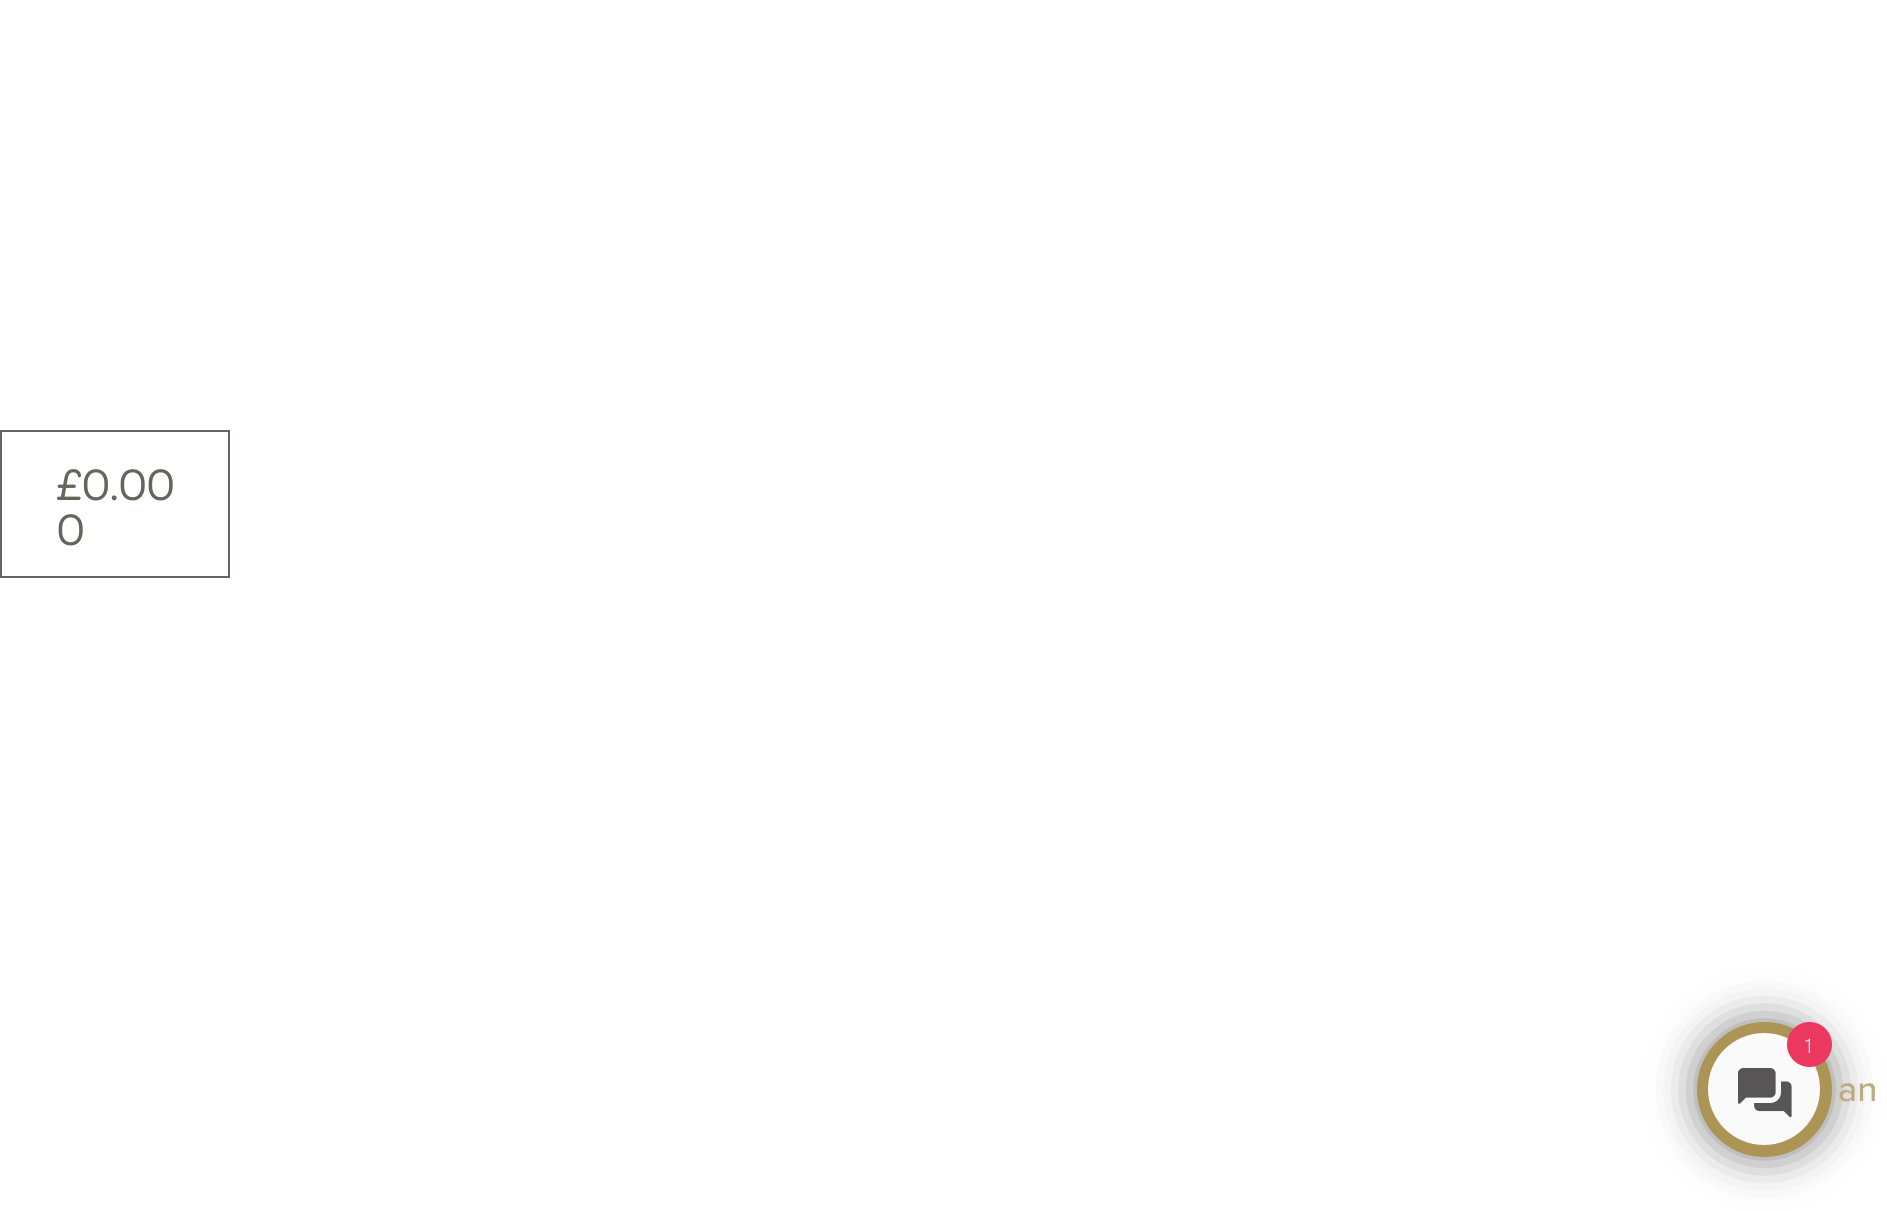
import math
import cairo

surface = cairo.ImageSurface(cairo.FORMAT_RGB24, 1887, 1211)
cr = cairo.Context(surface)
options = cairo.FontOptions()
options.set_hint_metrics(cairo.HINT_METRICS_OFF)
options.set_hint_style(cairo.HINT_STYLE_NONE)
cr.set_font_options(options)
cr.set_miter_limit(4)


def rgb(code):
    cr.set_source_rgb(*(v / 255 for v in bytes.fromhex(code[-6:])))


def rrect(x, y, w, h, r):
    cr.new_sub_path()
    for i, (u, v) in enumerate([(x + w - r, y + h - r), (x + r, y + h - r), (x + r, y + r), (x + w - r, y + r)]):
        cr.arc(u, v, r, i * math.pi / 2, (i + 1) * math.pi / 2)
    cr.close_path()


def soft_shadow(x, y, w, h, r, blur, alpha):
    cr.push_group_with_content(cairo.CONTENT_ALPHA)
    cr.set_operator(cairo.OPERATOR_SOURCE)
    for i in range(15, -16, -2):
        e = blur * i / 6
        if min(w, h) + 2 * e > 0:
            cr.set_source_rgba(0, 0, 0, alpha * math.erfc((i - 1) / 8.5) / 2)
            rrect(x - e, y - e, w + 2 * e, h + 2 * e, max(0, min(r + e + blur * .6, min(w, h) / 2 + e)))
            cr.fill()
    cr.mask(cr.pop_group())


def image(path, x, y, w, h):
    cr.save()
    cr.set_source_surface(cairo.ImageSurface.create_from_png(path), x, y)
    cr.rectangle(x, y, w, h)
    cr.fill()
    cr.restore()


rgb("#ffffff")
cr.paint()
cr.rectangle(1, 431, 228, 146)
rgb("#68645c")
cr.stroke()
rgb("#000000")
soft_shadow(1697, 1022, 135, 135, 67.5, 22.5, 0.5)
rgb("#ac9454")
cr.arc(1764.5, 1089.5, 67.5, 0, 2 * math.pi)
cr.fill()
rgb("#fafafa")
cr.arc(1764, 1089, 56, 0, 2 * math.pi)
cr.fill()
image("img/1.png", 1738, 1068, 54, 50)
rgb("#eb385e")
cr.arc(1809.5, 1044.5, 22.5, 0, 2 * math.pi)
cr.fill()
cr.select_font_face("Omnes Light", cairo.FONT_SLANT_NORMAL, cairo.FONT_WEIGHT_BOLD)
cr.set_font_size(45)
rgb("#68645c")
cr.move_to(56, 500)
cr.show_text("£0.00")
cr.move_to(56, 545)
cr.show_text("0")
cr.select_font_face("Omnes Light Light")
cr.set_font_size(22)
rgb("#ffffff")
cr.move_to(1805, 1053)
cr.show_text("1")
cr.select_font_face("Proxima Nova Medium")
cr.set_font_size(36)
rgb("#beac7e")
cr.move_to(1838, 1101)
cr.show_text("an")
surface.write_to_png("page.png")
